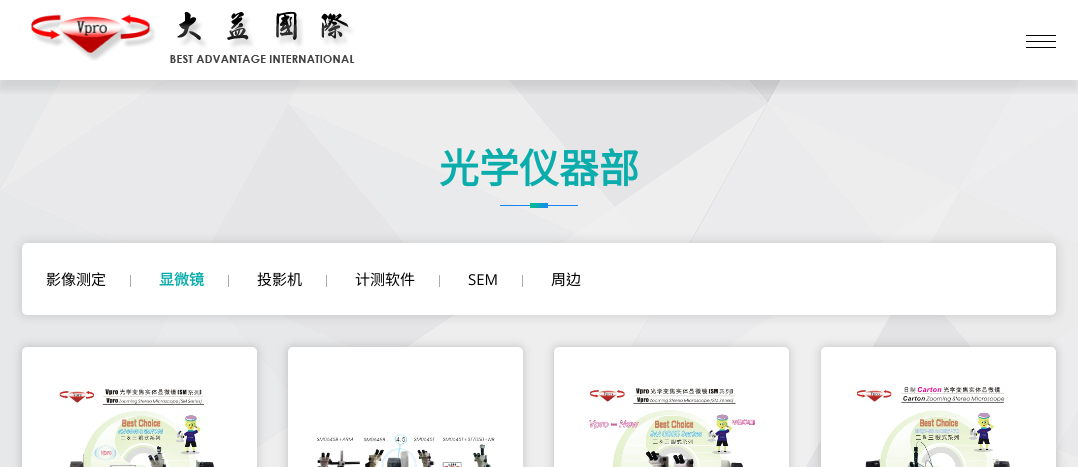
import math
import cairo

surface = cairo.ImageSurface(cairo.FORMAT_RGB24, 1078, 467)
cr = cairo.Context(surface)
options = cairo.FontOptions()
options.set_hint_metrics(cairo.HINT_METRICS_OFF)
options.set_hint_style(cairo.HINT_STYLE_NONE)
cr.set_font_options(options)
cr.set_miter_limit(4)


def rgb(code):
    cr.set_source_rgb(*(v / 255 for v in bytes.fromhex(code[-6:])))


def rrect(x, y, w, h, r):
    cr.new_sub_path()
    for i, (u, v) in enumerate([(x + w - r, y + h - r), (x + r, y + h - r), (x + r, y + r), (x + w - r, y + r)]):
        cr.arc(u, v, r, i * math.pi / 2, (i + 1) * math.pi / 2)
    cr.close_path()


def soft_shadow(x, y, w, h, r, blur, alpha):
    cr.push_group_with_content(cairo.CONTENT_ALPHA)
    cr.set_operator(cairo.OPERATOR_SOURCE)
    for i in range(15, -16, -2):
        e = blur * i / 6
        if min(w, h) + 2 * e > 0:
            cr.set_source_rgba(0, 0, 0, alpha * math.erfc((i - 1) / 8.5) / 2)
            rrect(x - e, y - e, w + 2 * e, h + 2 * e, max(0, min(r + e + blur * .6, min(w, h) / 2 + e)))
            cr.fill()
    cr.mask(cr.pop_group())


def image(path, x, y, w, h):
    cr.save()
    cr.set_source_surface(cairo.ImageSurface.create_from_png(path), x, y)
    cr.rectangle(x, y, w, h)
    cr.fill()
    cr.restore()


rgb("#ffffff")
cr.paint()
image("img/5.png", 0, 80, 1078, 387)
cr.save()
cr.rectangle(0, 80, 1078, 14)
cr.clip()
rgb("#000000")
soft_shadow(0, 10, 1078, 80, 0, 5, 0.1)
cr.restore()
image("img/1.png", 31, 14, 35, 33)
image("img/3.png", 120, 14, 36, 33)
image("img/2.png", 58, 16, 70, 45)
image("img/4.png", 170, 11, 185, 52)
for x, y, w, h, color in [
    (1026, 35, 30, 1, "#000000"),
    (1026, 41, 30, 1, "#000000"),
    (1026, 47, 30, 1, "#000000"),
]:
    rgb(color)
    cr.rectangle(x, y, w, h)
    cr.fill()
gradient = cairo.LinearGradient(530, 206, 548, 206)
gradient.add_color_stop_rgba(0, 0.02, 0.761, 0.518, 1)
gradient.add_color_stop_rgba(1, 0.086, 0.525, 0.969, 1)
cr.set_source(gradient)
cr.rectangle(530, 203, 18, 5)
cr.fill()
rgb("#1686f7")
cr.rectangle(500, 205, 30, 1)
cr.fill()
cr.rectangle(548, 205, 30, 1)
cr.fill()
rgb("#000000")
soft_shadow(22, 243, 1034, 72, 5, 6, 0.15)
rgb("#ffffff")
rrect(22, 243, 1034, 72, 5)
cr.fill()
for x, y, w, h, color in [
    (130, 275, 1, 12, "#ababab"),
    (228, 275, 1, 12, "#ababab"),
    (326, 275, 1, 12, "#ababab"),
    (439, 275, 1, 12, "#ababab"),
    (522, 275, 1, 12, "#ababab"),
]:
    rgb(color)
    cr.rectangle(x, y, w, h)
    cr.fill()
rgb("#000000")
soft_shadow(22, 347, 235, 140, 5, 5, 0.2)
rgb("#ffffff")
rrect(22, 347, 235, 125, 5)
cr.fill()
image("img/6.png", 59, 389, 155, 78)
rgb("#000000")
soft_shadow(288, 347, 235, 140, 5, 5, 0.2)
rgb("#ffffff")
rrect(288, 347, 235, 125, 5)
cr.fill()
image("img/7.png", 317, 434, 178, 33)
rgb("#000000")
soft_shadow(554, 347, 235, 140, 5, 5, 0.2)
rgb("#ffffff")
rrect(554, 347, 235, 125, 5)
cr.fill()
image("img/8.png", 589, 388, 166, 79)
rgb("#000000")
soft_shadow(821, 347, 235, 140, 5, 5, 0.2)
rgb("#ffffff")
rrect(821, 347, 235, 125, 5)
cr.fill()
image("img/9.png", 856, 386, 154, 81)
cr.select_font_face("Noto Sans CJK TC", cairo.FONT_SLANT_NORMAL, cairo.FONT_WEIGHT_BOLD)
cr.set_font_size(40)
rgb("#0badac")
cr.move_to(439, 183)
cr.show_text("光学仪器部")
cr.select_font_face("Noto Sans CJK TC")
cr.set_font_size(15)
rgb("#000000")
cr.move_to(46, 285)
cr.show_text("影像测定")
cr.select_font_face("Noto Sans CJK TC", cairo.FONT_SLANT_NORMAL, cairo.FONT_WEIGHT_BOLD)
rgb("#0badac")
cr.move_to(159, 285)
cr.show_text("显微镜")
cr.select_font_face("Noto Sans CJK TC")
rgb("#000000")
cr.move_to(257, 285)
cr.show_text("投影机")
cr.move_to(355, 285)
cr.show_text("计测软件")
cr.select_font_face("Open Sans")
cr.move_to(468, 285)
cr.show_text("SEM")
cr.select_font_face("Noto Sans CJK TC")
cr.move_to(551, 285)
cr.show_text("周边")
surface.write_to_png("page.png")
